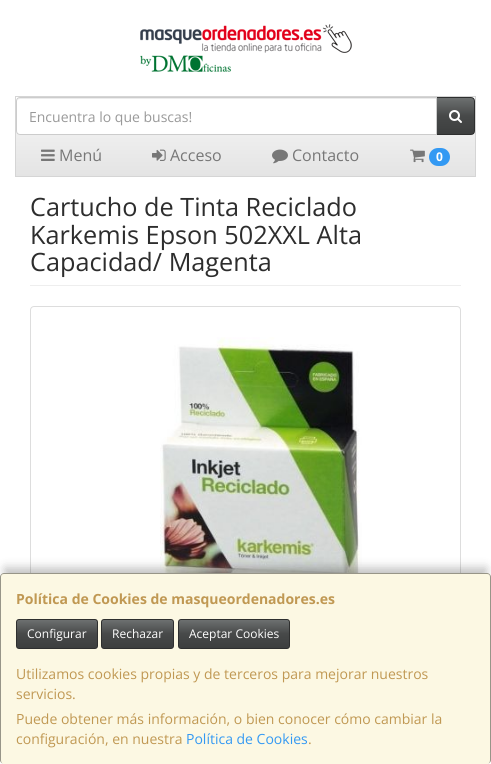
import math
import cairo

surface = cairo.ImageSurface(cairo.FORMAT_RGB24, 491, 764)
cr = cairo.Context(surface)
options = cairo.FontOptions()
options.set_hint_metrics(cairo.HINT_METRICS_OFF)
options.set_hint_style(cairo.HINT_STYLE_NONE)
cr.set_font_options(options)
cr.set_miter_limit(4)


def rgb(code):
    cr.set_source_rgb(*(v / 255 for v in bytes.fromhex(code[-6:])))


def rrect(x, y, w, h, r):
    cr.new_sub_path()
    for i, (u, v) in enumerate([(x + w - r, y + h - r), (x + r, y + h - r), (x + r, y + r), (x + w - r, y + r)]):
        cr.arc(u, v, r, i * math.pi / 2, (i + 1) * math.pi / 2)
    cr.close_path()


def soft_shadow(x, y, w, h, r, blur, alpha):
    cr.push_group_with_content(cairo.CONTENT_ALPHA)
    cr.set_operator(cairo.OPERATOR_SOURCE)
    for i in range(15, -16, -2):
        e = blur * i / 6
        if min(w, h) + 2 * e > 0:
            cr.set_source_rgba(0, 0, 0, alpha * math.erfc((i - 1) / 8.5) / 2)
            rrect(x - e, y - e, w + 2 * e, h + 2 * e, max(0, min(r + e + blur * .6, min(w, h) / 2 + e)))
            cr.fill()
    cr.mask(cr.pop_group())


def image(path, x, y, w, h):
    cr.save()
    cr.set_source_surface(cairo.ImageSurface.create_from_png(path), x, y)
    cr.rectangle(x, y, w, h)
    cr.fill()
    cr.restore()


rgb("#ffffff")
cr.paint()
image("img/1.png", 140, 24, 212, 48)
gradient = cairo.LinearGradient(246, 97, 246, 176)
gradient.add_color_stop_rgba(0, 1, 1, 1, 1)
gradient.add_color_stop_rgba(0.5, 0.933, 0.933, 0.933, 1)
gradient.add_color_stop_rgba(1, 0.894, 0.894, 0.894, 1)
cr.set_source(gradient)
cr.rectangle(16, 103, 459, 73)
cr.fill()
cr.rectangle(15.5, 96.5, 460, 80)
rgb("#d5d5d5")
cr.set_line_width(1)
cr.stroke()
gradient = cairo.LinearGradient(456, 98, 456, 134)
gradient.add_color_stop_rgba(0, 0.427, 0.439, 0.439, 1)
gradient.add_color_stop_rgba(0.5, 0.278, 0.286, 0.286, 1)
gradient.add_color_stop_rgba(1, 0.239, 0.247, 0.247, 1)
cr.set_source(gradient)
cr.rectangle(437, 98, 37, 36)
cr.fill()
cr.new_path()
cr.move_to(436.5, 97.5)
cr.line_to(471, 97.5)
cr.curve_to(473, 97.5, 474.5, 99, 474.5, 101)
cr.line_to(474.5, 131)
cr.curve_to(474.5, 133, 473, 134.5, 471, 134.5)
cr.line_to(436.5, 134.5)
cr.close_path()
rgb("#2e2f2f")
cr.stroke()
rgb("#ffffff")
cr.new_path()
cr.move_to(20, 97)
cr.line_to(437, 97)
cr.line_to(437, 135)
cr.line_to(20, 135)
cr.curve_to(18, 135, 16, 133, 16, 131)
cr.line_to(16, 101)
cr.curve_to(16, 99, 18, 97, 20, 97)
cr.close_path()
cr.fill()
rgb("#ececec")
cr.new_path()
cr.move_to(20, 99)
cr.line_to(436, 99)
cr.line_to(436, 98)
cr.line_to(20, 98)
cr.curve_to(18, 98, 17, 100, 17, 102)
cr.curve_to(17, 100, 18, 99, 20, 99)
cr.close_path()
cr.fill()
cr.new_path()
cr.move_to(20, 97.5)
cr.line_to(436.5, 97.5)
cr.line_to(436.5, 134.5)
cr.line_to(20, 134.5)
cr.curve_to(18, 134.5, 16.5, 133, 16.5, 131)
cr.line_to(16.5, 101)
cr.curve_to(16.5, 99, 18, 97.5, 20, 97.5)
cr.close_path()
rgb("#cccccc")
cr.stroke()
image("img/2.png", 449, 110, 13, 13)
image("img/3.png", 41, 149, 14, 12)
image("img/4.png", 152, 149, 14, 12)
image("img/5.png", 272, 149, 16, 15)
image("img/6.png", 410, 149, 15, 14)
rgb("#3399f3")
rrect(429, 148, 21, 18, 9)
cr.fill()
rgb("#eeeeee")
cr.rectangle(30, 285, 431, 1)
cr.fill()
rrect(30.5, 306.5, 430, 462, 3.5)
rgb("#dddddd")
cr.stroke()
image("img/7.png", 160, 337, 202, 236)
rgb("#000000")
soft_shadow(5, 568, 481, 181, 0, 5, 0.25)
rgb("#fcf8e3")
rrect(0, 573, 491, 191, 4)
cr.fill()
cr.set_source_rgba(0, 0, 0, 0.4)
cr.set_fill_rule(cairo.FILL_RULE_EVEN_ODD)
cr.new_path()
cr.move_to(4, 573)
cr.line_to(487, 573)
cr.curve_to(489, 573, 491, 575, 491, 577)
cr.line_to(491, 760)
cr.curve_to(491, 762, 489, 764, 487, 764)
cr.line_to(4, 764)
cr.curve_to(2, 764, 0, 762, 0, 760)
cr.line_to(0, 577)
cr.curve_to(0, 575, 2, 573, 4, 573)
cr.close_path()
cr.move_to(4, 574)
cr.line_to(487, 574)
cr.curve_to(489, 574, 490, 575, 490, 577)
cr.line_to(490, 760)
cr.curve_to(490, 762, 489, 764, 487, 764)
cr.line_to(4, 764)
cr.curve_to(2, 764, 1, 762, 1, 760)
cr.line_to(1, 577)
cr.curve_to(1, 575, 2, 574, 4, 574)
cr.close_path()
cr.fill()
gradient = cairo.LinearGradient(57, 620, 57, 648)
gradient.add_color_stop_rgba(0, 0.427, 0.439, 0.439, 1)
gradient.add_color_stop_rgba(0.5, 0.278, 0.286, 0.286, 1)
gradient.add_color_stop_rgba(1, 0.239, 0.247, 0.247, 1)
cr.set_source(gradient)
cr.rectangle(17, 620, 80, 28)
cr.fill()
rrect(16.5, 619.5, 81, 29, 2.5)
rgb("#2e2f2f")
cr.stroke()
gradient = cairo.LinearGradient(138, 620, 138, 648)
gradient.add_color_stop_rgba(0, 0.427, 0.439, 0.439, 1)
gradient.add_color_stop_rgba(0.5, 0.278, 0.286, 0.286, 1)
gradient.add_color_stop_rgba(1, 0.239, 0.247, 0.247, 1)
cr.set_source(gradient)
cr.rectangle(102, 620, 71, 28)
cr.fill()
rrect(101.5, 619.5, 72, 29, 2.5)
rgb("#2e2f2f")
cr.stroke()
gradient = cairo.LinearGradient(234, 620, 234, 648)
gradient.add_color_stop_rgba(0, 0.427, 0.439, 0.439, 1)
gradient.add_color_stop_rgba(0.5, 0.278, 0.286, 0.286, 1)
gradient.add_color_stop_rgba(1, 0.239, 0.247, 0.247, 1)
cr.set_source(gradient)
cr.rectangle(179, 620, 110, 28)
cr.fill()
rrect(178.5, 619.5, 111, 29, 2.5)
rgb("#2e2f2f")
cr.stroke()
cr.select_font_face("Open Sans")
cr.set_font_size(14)
rgb("#999999")
cr.move_to(29, 122)
cr.show_text("Encuentra lo que buscas!")
cr.set_font_size(16)
rgb("#777777")
for x, y, s in [
    (59, 161, "Menú"),
    (170, 161, "Acceso"),
    (292, 161, "Contacto"),
]:
    cr.move_to(x, y)
    cr.show_text(s)
cr.select_font_face("Open Sans", cairo.FONT_SLANT_NORMAL, cairo.FONT_WEIGHT_BOLD)
cr.set_font_size(12)
rgb("#ffffff")
cr.move_to(436, 161)
cr.show_text("0")
cr.select_font_face("Open Sans")
cr.set_font_size(25.25)
rgb("#2d2d2d")
for x, y, s in [
    (30, 216, "Cartucho de Tinta Reciclado"),
    (30, 244, "Karkemis Epson 502XXL Alta"),
    (30, 271, "Capacidad/ Magenta"),
]:
    cr.move_to(x, y)
    cr.show_text(s)
cr.select_font_face("Open Sans", cairo.FONT_SLANT_NORMAL, cairo.FONT_WEIGHT_BOLD)
cr.set_font_size(14)
rgb("#c09853")
cr.move_to(16, 604)
cr.show_text("Política de Cookies de masqueordenadores.es")
cr.select_font_face("Open Sans")
cr.set_font_size(12)
rgb("#ffffff")
for x, y, s in [
    (27, 638, "Configurar"),
    (112, 638, "Rechazar"),
    (189, 638, "Aceptar Cookies"),
]:
    cr.move_to(x, y)
    cr.show_text(s)
cr.set_font_size(14)
rgb("#c09853")
for x, y, s in [
    (16, 679, "Utilizamos cookies propias y de terceros para mejorar nuestros"),
    (16, 699, "servicios."),
    (16, 724, "Puede obtener más información, o bien conocer cómo cambiar la"),
    (16, 744, "configuración, en nuestra"),
]:
    cr.move_to(x, y)
    cr.show_text(s)
rgb("#3399f3")
cr.move_to(186, 744)
cr.show_text("Política de Cookies")
rgb("#c09853")
cr.move_to(308, 744)
cr.show_text(".")
surface.write_to_png("page.png")
